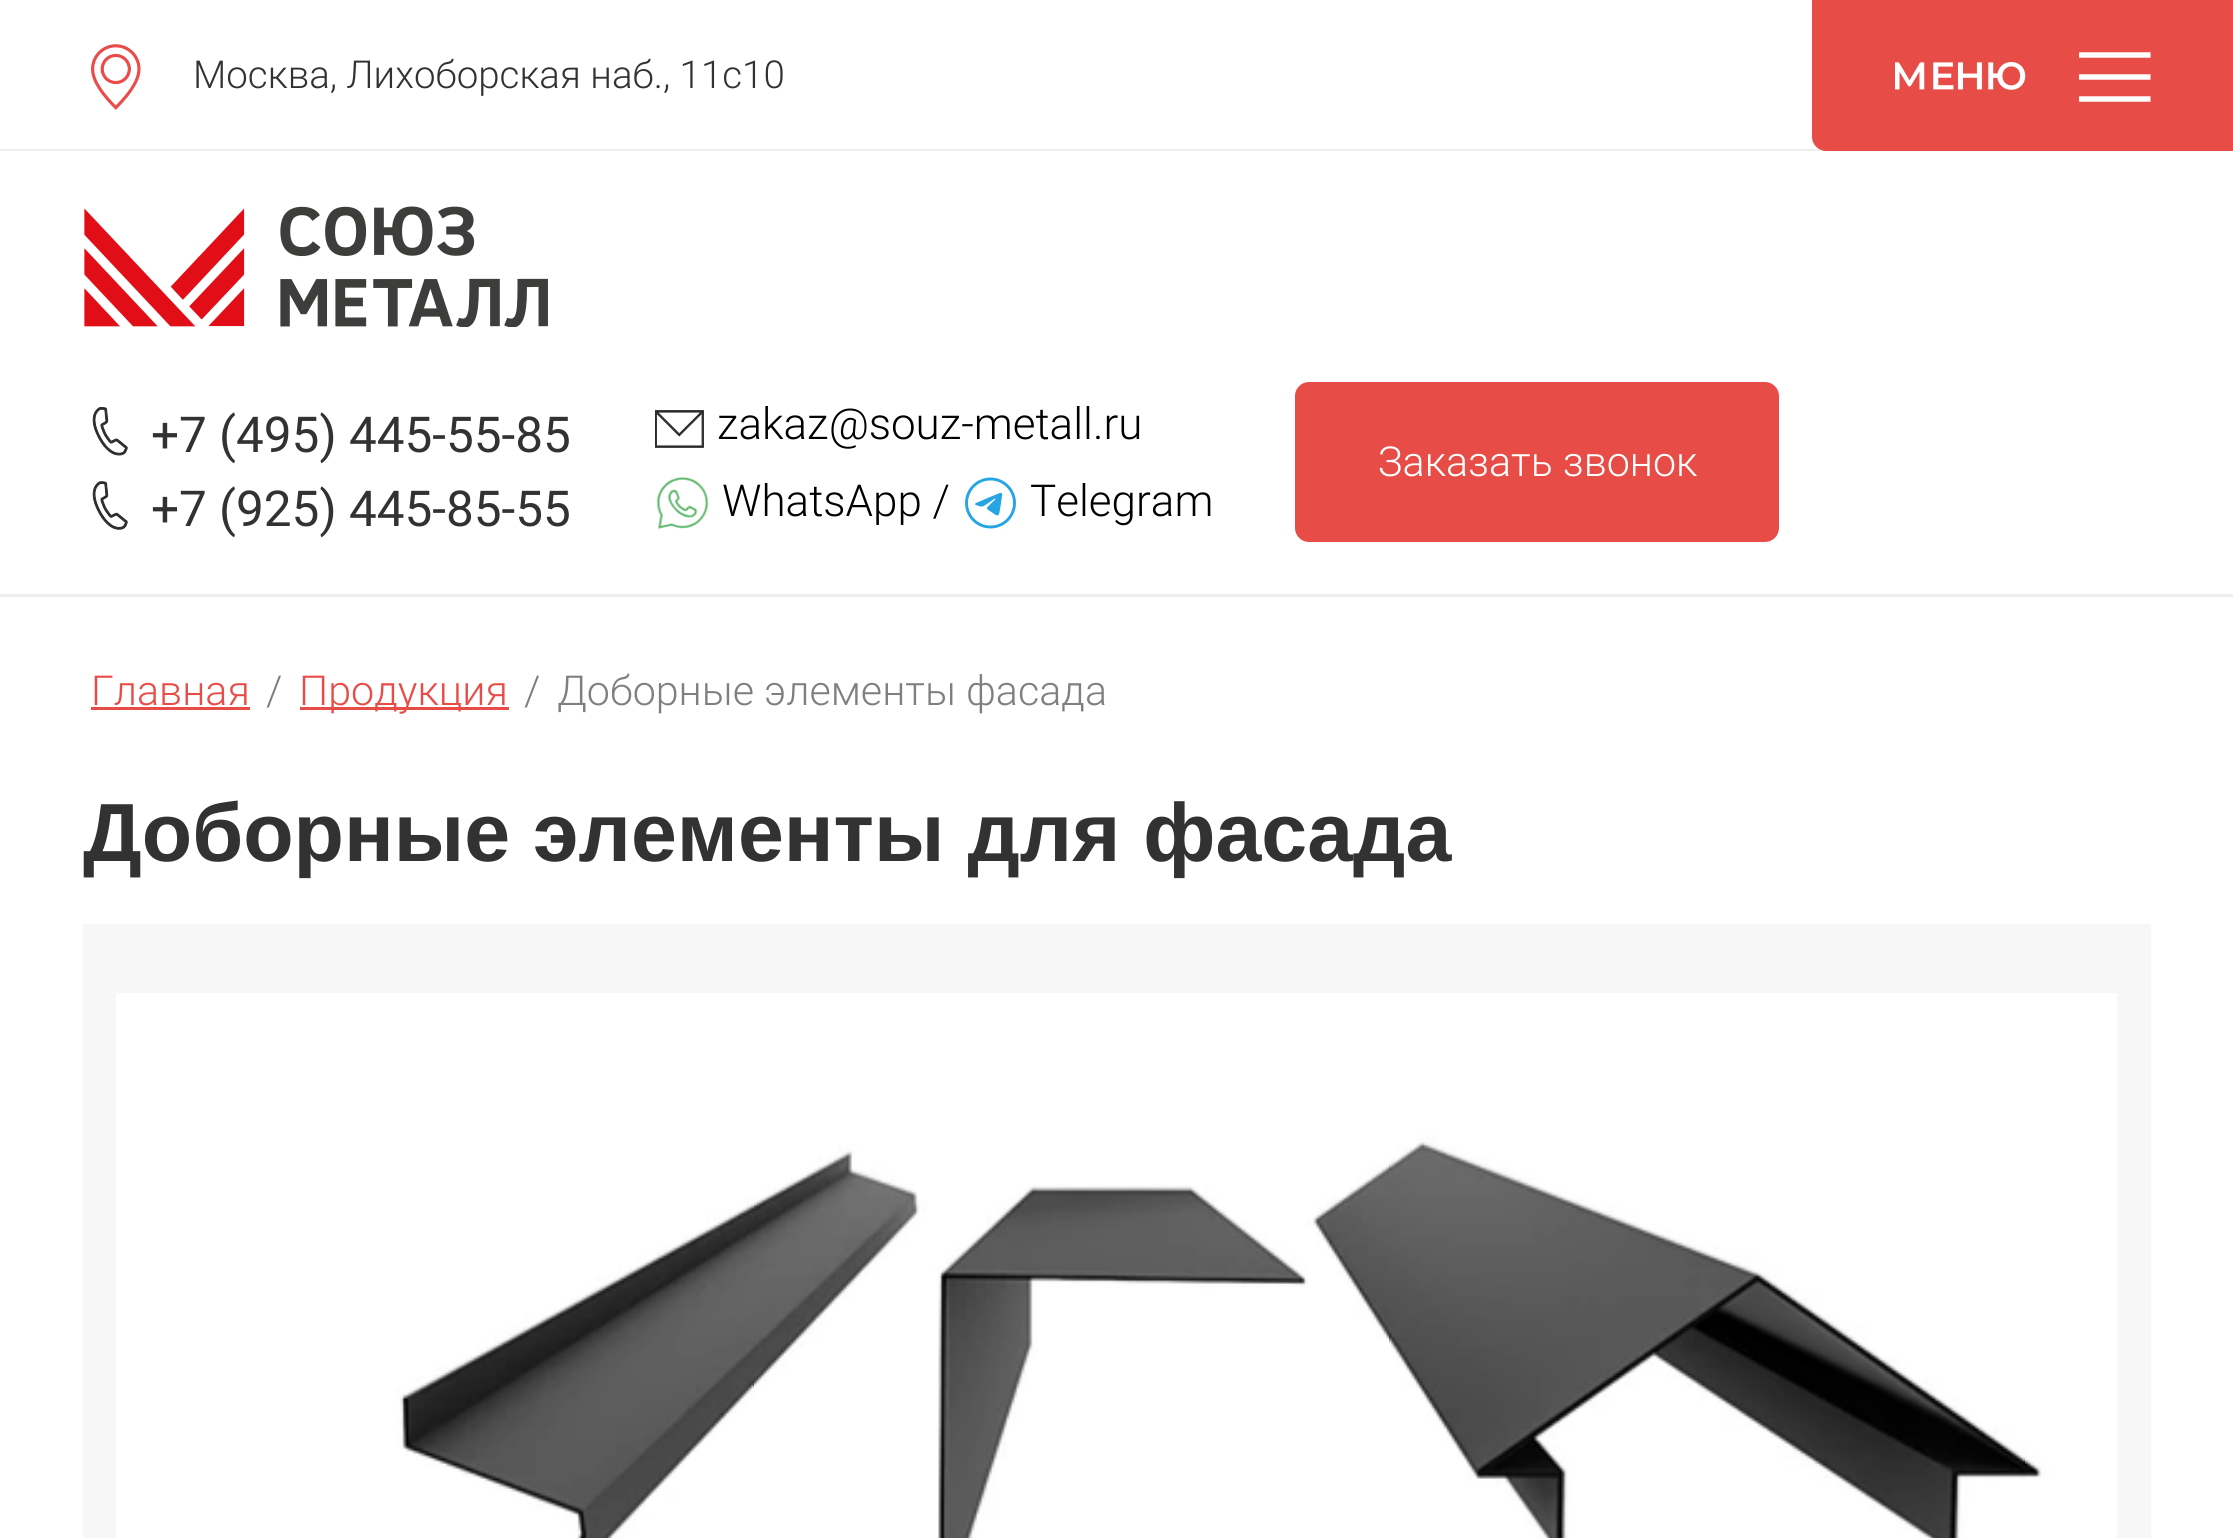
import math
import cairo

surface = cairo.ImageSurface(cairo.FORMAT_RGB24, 2233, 1538)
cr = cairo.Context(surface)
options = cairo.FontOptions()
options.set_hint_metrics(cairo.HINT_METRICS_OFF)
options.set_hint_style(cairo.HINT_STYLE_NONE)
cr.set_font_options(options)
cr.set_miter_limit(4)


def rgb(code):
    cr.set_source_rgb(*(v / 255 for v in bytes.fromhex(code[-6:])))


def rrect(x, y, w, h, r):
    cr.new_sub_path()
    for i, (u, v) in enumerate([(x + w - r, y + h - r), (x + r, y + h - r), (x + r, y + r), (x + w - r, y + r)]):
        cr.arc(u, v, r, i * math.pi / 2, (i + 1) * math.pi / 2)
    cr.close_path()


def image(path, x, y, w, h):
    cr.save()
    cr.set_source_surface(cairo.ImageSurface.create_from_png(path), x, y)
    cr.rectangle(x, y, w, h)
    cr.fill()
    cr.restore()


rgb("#ffffff")
cr.paint()
rgb("#eeeeee")
cr.rectangle(0, 149, 1826, 2)
cr.fill()
image("img/1.png", 91, 44, 50, 66)
rgb("#e84c47")
cr.new_path()
cr.move_to(1812, 0)
cr.line_to(2233, 0)
cr.line_to(2233, 151)
cr.line_to(1826, 151)
cr.curve_to(1818.5, 151, 1812, 144.5, 1812, 137)
cr.close_path()
cr.fill()
image("img/2.png", 1895, 52, 256, 50)
rgb("#eeeeee")
cr.rectangle(0, 594, 2233, 3)
cr.fill()
image("img/3.png", 84, 206, 464, 121)
image("img/4.png", 92, 407, 36, 49)
image("img/5.png", 92, 481, 36, 49)
image("img/6.png", 655, 410, 49, 38)
image("img/7.png", 656, 476, 53, 53)
image("img/8.png", 965, 477, 51, 52)
rgb("#e84c47")
rrect(1295, 382, 484, 160, 14)
cr.fill()
for x, y, w, h, color in [
    (91, 707, 159, 3, "#e84c47"),
    (300, 707, 209, 3, "#e84c47"),
    (83, 924, 2068, 614, "#f7f7f7"),
]:
    rgb(color)
    cr.rectangle(x, y, w, h)
    cr.fill()
image("img/9.png", 116, 993, 2001, 545)
cr.select_font_face("Roboto Light")
cr.set_font_size(38.5)
rgb("#323232")
cr.move_to(193, 88)
cr.show_text("Москва, Лихоборская наб., 11с10")
cr.select_font_face("Roboto")
cr.set_font_size(49.5)
cr.move_to(151, 452)
cr.show_text("+7 (495) 445-55-85")
cr.move_to(151, 526)
cr.show_text("+7 (925) 445-85-55")
cr.select_font_face("Roboto Light")
cr.set_font_size(44)
rgb("#000000")
for x, y, s in [
    (717, 439, "zakaz@souz-metall.ru"),
    (722, 516, "WhatsApp /"),
    (1030, 516, "Telegram"),
]:
    cr.move_to(x, y)
    cr.show_text(s)
cr.set_font_size(41.25)
rgb("#ffffff")
cr.move_to(1378, 476)
cr.show_text("Заказать звонок")
rgb("#e84c47")
cr.move_to(91, 705)
cr.show_text("Главная")
rgb("#7f7f7f")
cr.move_to(266, 705)
cr.show_text("/")
rgb("#e84c47")
cr.move_to(299, 705)
cr.show_text("Продукция")
rgb("#7f7f7f")
cr.move_to(524, 705)
cr.show_text("/")
cr.move_to(557, 705)
cr.show_text("Доборные элементы фасада")
cr.select_font_face("Liberation Sans", cairo.FONT_SLANT_NORMAL, cairo.FONT_WEIGHT_BOLD)
cr.set_font_size(82.5)
rgb("#323232")
cr.move_to(83, 861)
cr.show_text("Доборные элементы для фасада")
surface.write_to_png("page.png")
